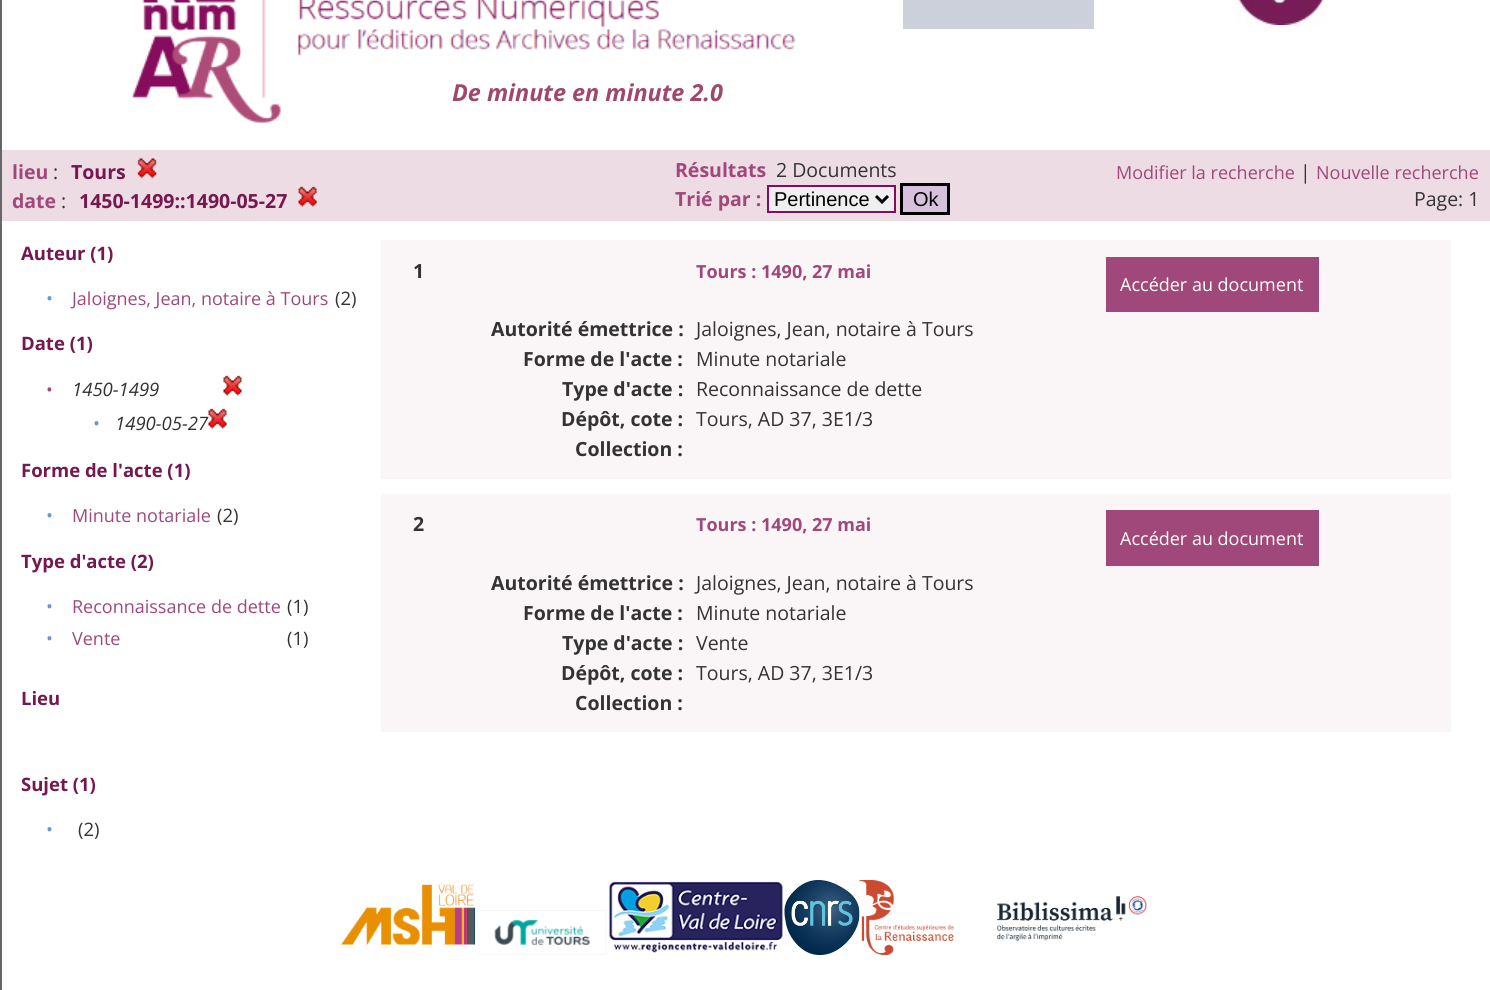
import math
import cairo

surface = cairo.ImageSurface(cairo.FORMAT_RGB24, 1490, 990)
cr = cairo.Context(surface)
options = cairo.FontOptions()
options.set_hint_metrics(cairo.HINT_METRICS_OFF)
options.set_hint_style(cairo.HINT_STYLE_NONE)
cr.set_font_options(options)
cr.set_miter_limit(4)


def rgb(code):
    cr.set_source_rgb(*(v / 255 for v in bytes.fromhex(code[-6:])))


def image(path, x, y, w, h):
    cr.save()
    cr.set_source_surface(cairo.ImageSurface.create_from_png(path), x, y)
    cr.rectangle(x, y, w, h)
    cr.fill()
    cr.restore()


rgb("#666666")
cr.paint()
rgb("#ffffff")
cr.rectangle(2, 0, 1488, 150)
cr.fill()
image("img/1.png", 131, 0, 665, 124)
rgb("#ccd0db")
cr.rectangle(903, 0, 191, 29)
cr.fill()
image("img/2.png", 1235, 0, 92, 25)
rgb("#eddce3")
cr.rectangle(2, 150, 1488, 71)
cr.fill()
image("img/3.png", 137, 158, 20, 21)
image("img/4.png", 298, 186, 19, 21)
rgb("#efefef")
cr.rectangle(768, 186, 127, 26)
cr.fill_preserve()
rgb("#880c5e")
cr.stroke()
cr.new_path()
cr.move_to(876, 196)
cr.line_to(882, 202)
cr.line_to(888, 196)
rgb("#000000")
cr.set_line_width(3)
cr.stroke()
rgb("#d6c0db")
cr.rectangle(901.5, 184.5, 47, 29)
cr.fill_preserve()
rgb("#000000")
cr.stroke()
rgb("#ffffff")
cr.rectangle(2, 221, 1488, 769)
cr.fill()
image("img/5.png", 223, 375, 19, 21)
image("img/5.png", 208, 408, 19, 21)
for x, y, w, h, color in [
    (381, 240, 1070, 239, "#faf5f7"),
    (1106, 257, 213, 55, "#9f4879"),
    (381, 494, 1070, 238, "#faf5f7"),
    (1106, 510, 213, 56, "#9f4879"),
]:
    rgb(color)
    cr.rectangle(x, y, w, h)
    cr.fill()
image("img/6.png", 340, 884, 135, 61)
image("img/7.png", 478, 910, 129, 45)
image("img/8.png", 609, 881, 174, 72)
image("img/9.png", 784, 880, 76, 75)
image("img/10.png", 859, 880, 95, 75)
image("img/11.png", 996, 896, 151, 45)
cr.select_font_face("Open Sans", cairo.FONT_SLANT_ITALIC, cairo.FONT_WEIGHT_BOLD)
cr.set_font_size(23.4)
rgb("#9f486c")
cr.move_to(452, 101)
cr.show_text("De minute en minute 2.0")
cr.select_font_face("Open Sans", cairo.FONT_SLANT_NORMAL, cairo.FONT_WEIGHT_BOLD)
cr.set_font_size(19.5)
rgb("#9f4879")
cr.move_to(12, 179)
cr.show_text("lieu")
cr.select_font_face("Open Sans")
rgb("#333333")
cr.move_to(53, 179)
cr.show_text(":")
cr.select_font_face("Open Sans", cairo.FONT_SLANT_NORMAL, cairo.FONT_WEIGHT_BOLD)
rgb("#74184f")
cr.move_to(71, 179)
cr.show_text("Tours")
rgb("#9f4879")
cr.move_to(12, 208)
cr.show_text("date")
cr.select_font_face("Open Sans")
rgb("#333333")
cr.move_to(61, 208)
cr.show_text(":")
cr.select_font_face("Open Sans", cairo.FONT_SLANT_NORMAL, cairo.FONT_WEIGHT_BOLD)
rgb("#74184f")
cr.move_to(79, 208)
cr.show_text("1450-1499::1490-05-27")
rgb("#9f4879")
cr.move_to(675, 177)
cr.show_text("Résultats")
cr.select_font_face("Open Sans")
rgb("#333333")
cr.move_to(776, 177)
cr.show_text("2 Documents")
cr.select_font_face("Open Sans", cairo.FONT_SLANT_NORMAL, cairo.FONT_WEIGHT_BOLD)
rgb("#9f4879")
cr.move_to(675, 206)
cr.show_text("Trié par :")
cr.select_font_face("Liberation Sans")
cr.set_font_size(20)
rgb("#000000")
cr.move_to(774, 206)
cr.show_text("Pertinence")
cr.move_to(913, 206)
cr.show_text("Ok")
cr.select_font_face("Open Sans")
cr.set_font_size(18)
rgb("#9f4879")
cr.move_to(1116, 179)
cr.show_text("Modifier la recherche")
cr.set_font_size(19.5)
rgb("#333333")
cr.move_to(1300, 179)
cr.show_text("|")
cr.set_font_size(18)
rgb("#9f4879")
cr.move_to(1316, 179)
cr.show_text("Nouvelle recherche")
cr.set_font_size(19.5)
rgb("#333333")
cr.move_to(1414, 206)
cr.show_text("Page: 1")
cr.select_font_face("Open Sans", cairo.FONT_SLANT_NORMAL, cairo.FONT_WEIGHT_BOLD)
cr.set_font_size(18.5)
rgb("#74184f")
cr.move_to(21, 260)
cr.show_text("Auteur (1)")
cr.select_font_face("Open Sans")
rgb("#6699cc")
cr.move_to(46, 305)
cr.show_text("•")
cr.set_font_size(18)
rgb("#9f4879")
cr.move_to(72, 305)
cr.show_text("Jaloignes, Jean, notaire à Tours")
cr.set_font_size(18.5)
rgb("#333333")
cr.move_to(335, 305)
cr.show_text("(2)")
cr.select_font_face("Open Sans", cairo.FONT_SLANT_NORMAL, cairo.FONT_WEIGHT_BOLD)
rgb("#74184f")
cr.move_to(21, 350)
cr.show_text("Date (1)")
cr.select_font_face("Open Sans")
cr.set_font_size(18)
rgb("#9f4879")
cr.move_to(46, 396)
cr.show_text("•")
cr.select_font_face("Open Sans", cairo.FONT_SLANT_ITALIC)
cr.set_font_size(18.5)
rgb("#333333")
cr.move_to(72, 396)
cr.show_text("1450-1499")
cr.select_font_face("Open Sans")
rgb("#6699cc")
cr.move_to(93, 430)
cr.show_text("•")
cr.select_font_face("Open Sans", cairo.FONT_SLANT_ITALIC)
rgb("#333333")
cr.move_to(115, 430)
cr.show_text("1490-05-27")
cr.select_font_face("Open Sans", cairo.FONT_SLANT_NORMAL, cairo.FONT_WEIGHT_BOLD)
rgb("#74184f")
cr.move_to(21, 477)
cr.show_text("Forme de l'acte (1)")
cr.select_font_face("Open Sans")
rgb("#6699cc")
cr.move_to(46, 522)
cr.show_text("•")
cr.set_font_size(18)
rgb("#9f4879")
cr.move_to(72, 522)
cr.show_text("Minute notariale")
cr.set_font_size(18.5)
rgb("#333333")
cr.move_to(217, 522)
cr.show_text("(2)")
cr.select_font_face("Open Sans", cairo.FONT_SLANT_NORMAL, cairo.FONT_WEIGHT_BOLD)
rgb("#74184f")
cr.move_to(21, 568)
cr.show_text("Type d'acte (2)")
cr.select_font_face("Open Sans")
rgb("#6699cc")
cr.move_to(46, 613)
cr.show_text("•")
cr.set_font_size(18)
rgb("#9f4879")
cr.move_to(72, 613)
cr.show_text("Reconnaissance de dette")
cr.set_font_size(18.5)
rgb("#333333")
cr.move_to(287, 613)
cr.show_text("(1)")
rgb("#6699cc")
cr.move_to(46, 645)
cr.show_text("•")
cr.set_font_size(18)
rgb("#9f4879")
cr.move_to(72, 645)
cr.show_text("Vente")
cr.set_font_size(18.5)
rgb("#333333")
cr.move_to(287, 645)
cr.show_text("(1)")
cr.select_font_face("Open Sans", cairo.FONT_SLANT_NORMAL, cairo.FONT_WEIGHT_BOLD)
rgb("#74184f")
cr.move_to(21, 705)
cr.show_text("Lieu")
cr.move_to(21, 791)
cr.show_text("Sujet (1)")
cr.select_font_face("Open Sans")
rgb("#6699cc")
cr.move_to(46, 836)
cr.show_text("•")
rgb("#333333")
cr.move_to(78, 836)
cr.show_text("(2)")
cr.select_font_face("Open Sans", cairo.FONT_SLANT_NORMAL, cairo.FONT_WEIGHT_BOLD)
cr.set_font_size(19.5)
cr.move_to(413, 278)
cr.show_text("1")
cr.set_font_size(18)
rgb("#9f4879")
cr.move_to(696, 278)
cr.show_text("Tours : 1490, 27 mai")
cr.select_font_face("Open Sans")
rgb("#ffffff")
cr.move_to(1120, 291)
cr.show_text("Accéder au document")
cr.select_font_face("Open Sans", cairo.FONT_SLANT_NORMAL, cairo.FONT_WEIGHT_BOLD)
cr.set_font_size(19.5)
rgb("#333333")
cr.move_to(491, 336)
cr.show_text("Autorité émettrice :")
cr.select_font_face("Open Sans")
cr.move_to(696, 336)
cr.show_text("Jaloignes, Jean, notaire à Tours")
cr.select_font_face("Open Sans", cairo.FONT_SLANT_NORMAL, cairo.FONT_WEIGHT_BOLD)
cr.move_to(523, 366)
cr.show_text("Forme de l'acte :")
cr.select_font_face("Open Sans")
cr.move_to(696, 366)
cr.show_text("Minute notariale")
cr.select_font_face("Open Sans", cairo.FONT_SLANT_NORMAL, cairo.FONT_WEIGHT_BOLD)
cr.move_to(562, 396)
cr.show_text("Type d'acte :")
cr.select_font_face("Open Sans")
cr.move_to(696, 396)
cr.show_text("Reconnaissance de dette")
cr.select_font_face("Open Sans", cairo.FONT_SLANT_NORMAL, cairo.FONT_WEIGHT_BOLD)
cr.move_to(561, 426)
cr.show_text("Dépôt, cote :")
cr.select_font_face("Open Sans")
cr.move_to(696, 426)
cr.show_text("Tours, AD 37, 3E1/3")
cr.select_font_face("Open Sans", cairo.FONT_SLANT_NORMAL, cairo.FONT_WEIGHT_BOLD)
cr.move_to(575, 456)
cr.show_text("Collection :")
cr.move_to(413, 531)
cr.show_text("2")
cr.set_font_size(18)
rgb("#9f4879")
cr.move_to(696, 531)
cr.show_text("Tours : 1490, 27 mai")
cr.select_font_face("Open Sans")
rgb("#ffffff")
cr.move_to(1120, 545)
cr.show_text("Accéder au document")
cr.select_font_face("Open Sans", cairo.FONT_SLANT_NORMAL, cairo.FONT_WEIGHT_BOLD)
cr.set_font_size(19.5)
rgb("#333333")
cr.move_to(491, 590)
cr.show_text("Autorité émettrice :")
cr.select_font_face("Open Sans")
cr.move_to(696, 590)
cr.show_text("Jaloignes, Jean, notaire à Tours")
cr.select_font_face("Open Sans", cairo.FONT_SLANT_NORMAL, cairo.FONT_WEIGHT_BOLD)
cr.move_to(523, 620)
cr.show_text("Forme de l'acte :")
cr.select_font_face("Open Sans")
cr.move_to(696, 620)
cr.show_text("Minute notariale")
cr.select_font_face("Open Sans", cairo.FONT_SLANT_NORMAL, cairo.FONT_WEIGHT_BOLD)
cr.move_to(562, 650)
cr.show_text("Type d'acte :")
cr.select_font_face("Open Sans")
cr.move_to(696, 650)
cr.show_text("Vente")
cr.select_font_face("Open Sans", cairo.FONT_SLANT_NORMAL, cairo.FONT_WEIGHT_BOLD)
cr.move_to(561, 680)
cr.show_text("Dépôt, cote :")
cr.select_font_face("Open Sans")
cr.move_to(696, 680)
cr.show_text("Tours, AD 37, 3E1/3")
cr.select_font_face("Open Sans", cairo.FONT_SLANT_NORMAL, cairo.FONT_WEIGHT_BOLD)
cr.move_to(575, 710)
cr.show_text("Collection :")
surface.write_to_png("page.png")
